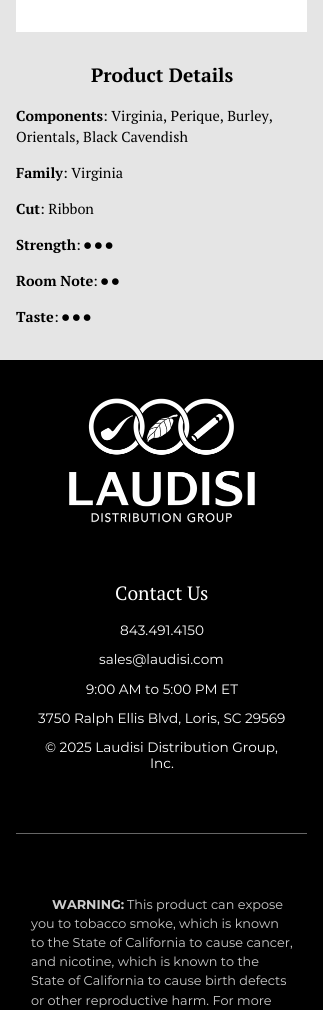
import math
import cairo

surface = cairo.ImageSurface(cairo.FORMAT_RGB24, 323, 1010)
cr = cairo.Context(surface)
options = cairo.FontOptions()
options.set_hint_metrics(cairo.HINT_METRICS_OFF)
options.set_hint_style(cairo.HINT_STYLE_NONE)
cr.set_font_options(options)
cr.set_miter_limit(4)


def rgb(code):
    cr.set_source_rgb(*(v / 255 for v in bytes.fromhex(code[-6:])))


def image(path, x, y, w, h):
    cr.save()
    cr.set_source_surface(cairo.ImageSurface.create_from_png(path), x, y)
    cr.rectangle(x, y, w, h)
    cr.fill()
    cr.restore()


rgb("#e5e5e5")
cr.paint()
for x, y, w, h, color in [
    (16, 0, 291, 32, "#ffffff"),
    (0, 360, 323, 650, "#000000"),
    (16, 833, 291, 1, "#666666"),
]:
    rgb(color)
    cr.rectangle(x, y, w, h)
    cr.fill()
image("img/1.png", 69, 398, 186, 125)
cr.select_font_face("PT Serif", cairo.FONT_SLANT_NORMAL, cairo.FONT_WEIGHT_BOLD)
cr.set_font_size(19.25)
rgb("#000000")
cr.move_to(91, 82)
cr.show_text("Product Details")
cr.set_font_size(14.4)
cr.move_to(16, 121)
cr.show_text("Components")
cr.select_font_face("PT Serif")
cr.move_to(103, 121)
cr.show_text(": Virginia, Perique, Burley,")
cr.move_to(16, 142)
cr.show_text("Orientals, Black Cavendish")
cr.select_font_face("PT Serif", cairo.FONT_SLANT_NORMAL, cairo.FONT_WEIGHT_BOLD)
cr.move_to(16, 178)
cr.show_text("Family")
cr.select_font_face("PT Serif")
cr.move_to(63, 178)
cr.show_text(": Virginia")
cr.select_font_face("PT Serif", cairo.FONT_SLANT_NORMAL, cairo.FONT_WEIGHT_BOLD)
cr.move_to(16, 214)
cr.show_text("Cut")
cr.select_font_face("PT Serif")
cr.move_to(40, 214)
cr.show_text(": Ribbon")
cr.select_font_face("PT Serif", cairo.FONT_SLANT_NORMAL, cairo.FONT_WEIGHT_BOLD)
cr.move_to(16, 250)
cr.show_text("Strength")
cr.select_font_face("PT Serif")
cr.move_to(76, 250)
cr.show_text(":")
cr.select_font_face("FreeSans")
cr.move_to(84, 250)
cr.show_text("⏺ ⏺ ⏺")
cr.select_font_face("PT Serif", cairo.FONT_SLANT_NORMAL, cairo.FONT_WEIGHT_BOLD)
cr.move_to(16, 286)
cr.show_text("Room Note")
cr.select_font_face("PT Serif")
cr.move_to(93, 286)
cr.show_text(":")
cr.select_font_face("FreeSans")
cr.move_to(101, 286)
cr.show_text("⏺ ⏺")
cr.select_font_face("PT Serif", cairo.FONT_SLANT_NORMAL, cairo.FONT_WEIGHT_BOLD)
cr.move_to(16, 322)
cr.show_text("Taste")
cr.select_font_face("PT Serif")
cr.move_to(54, 322)
cr.show_text(":")
cr.select_font_face("FreeSans")
cr.move_to(62, 322)
cr.show_text("⏺ ⏺ ⏺")
cr.select_font_face("PT Serif")
cr.set_font_size(19.25)
rgb("#ffffff")
cr.move_to(115, 600)
cr.show_text("Contact Us")
cr.select_font_face("Montserrat")
cr.set_font_size(13.6)
for x, y, s in [
    (120, 635, "843.491.4150"),
    (99, 664, "sales@laudisi.com"),
    (86, 694, "9:00 AM to 5:00 PM ET"),
    (38, 723, "3750 Ralph Ellis Blvd, Loris, SC 29569"),
    (45, 752, "© 2025 Laudisi Distribution Group,"),
    (150, 768, "Inc."),
]:
    cr.move_to(x, y)
    cr.show_text(s)
cr.select_font_face("Montserrat", cairo.FONT_SLANT_NORMAL, cairo.FONT_WEIGHT_BOLD)
cr.set_font_size(12.8)
rgb("#cccccc")
cr.move_to(52, 909)
cr.show_text("WARNING:")
cr.select_font_face("Montserrat")
for x, y, s in [
    (127, 909, "This product can expose"),
    (31, 928, "you to tobacco smoke, which is known"),
    (31, 947, "to the State of California to cause cancer,"),
    (31, 966, "and nicotine, which is known to the"),
    (31, 985, "State of California to cause birth defects"),
    (31, 1005, "or other reproductive harm. For more"),
]:
    cr.move_to(x, y)
    cr.show_text(s)
surface.write_to_png("page.png")
